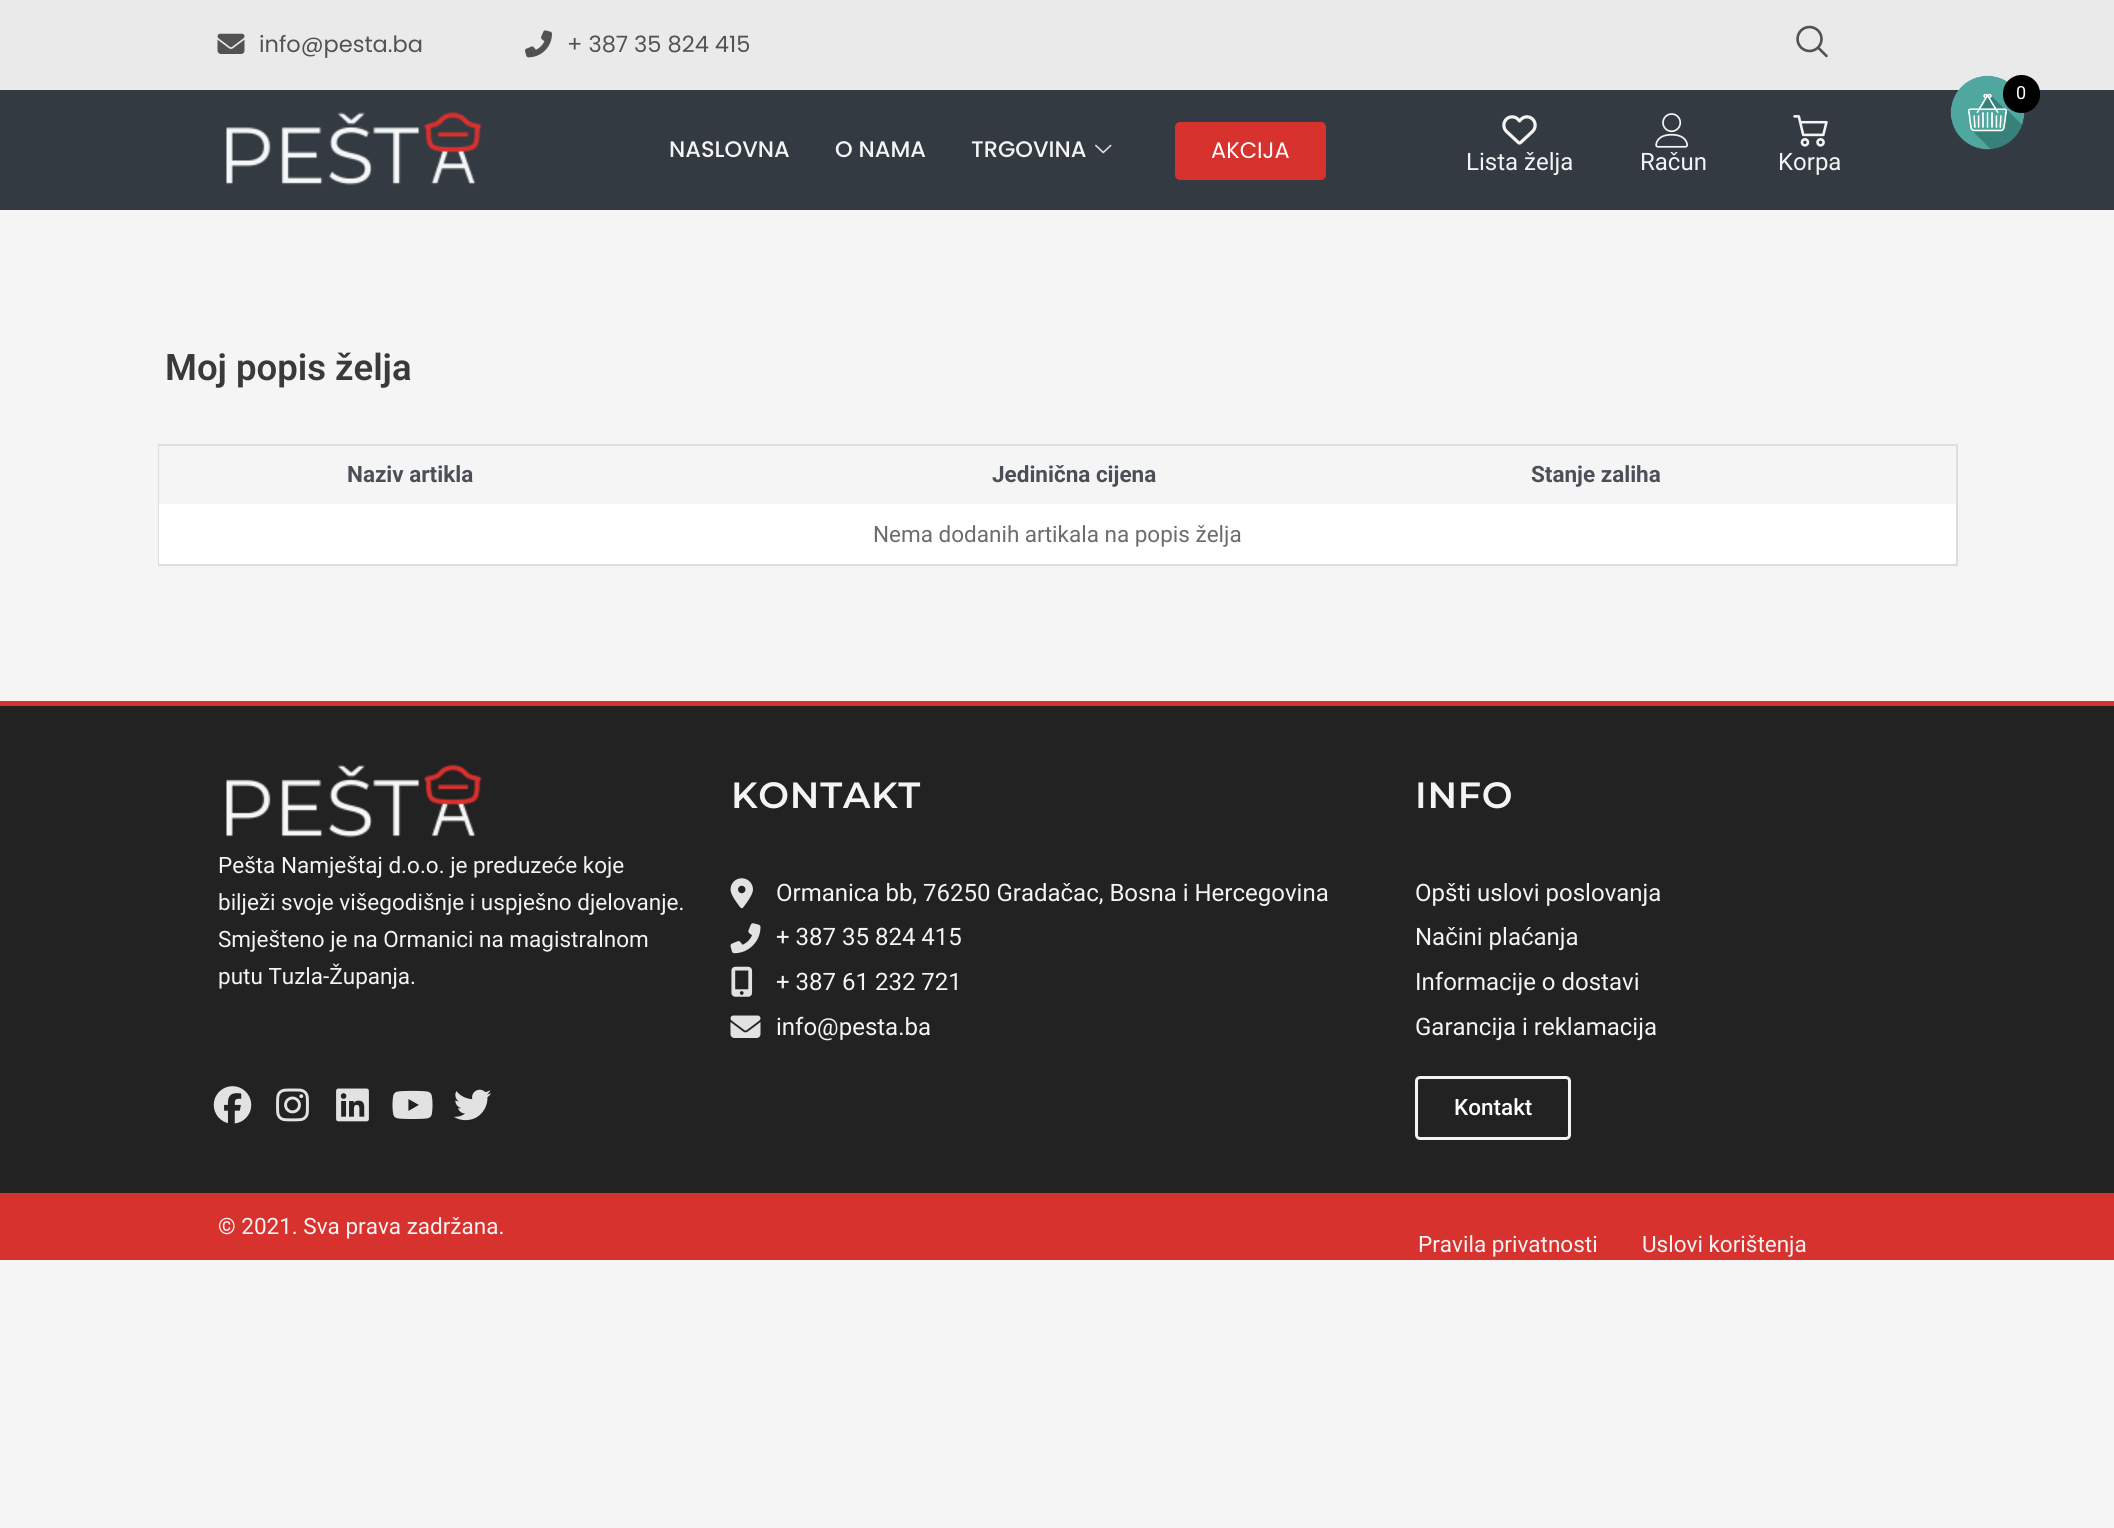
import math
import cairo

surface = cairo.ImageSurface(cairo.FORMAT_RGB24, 2114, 1528)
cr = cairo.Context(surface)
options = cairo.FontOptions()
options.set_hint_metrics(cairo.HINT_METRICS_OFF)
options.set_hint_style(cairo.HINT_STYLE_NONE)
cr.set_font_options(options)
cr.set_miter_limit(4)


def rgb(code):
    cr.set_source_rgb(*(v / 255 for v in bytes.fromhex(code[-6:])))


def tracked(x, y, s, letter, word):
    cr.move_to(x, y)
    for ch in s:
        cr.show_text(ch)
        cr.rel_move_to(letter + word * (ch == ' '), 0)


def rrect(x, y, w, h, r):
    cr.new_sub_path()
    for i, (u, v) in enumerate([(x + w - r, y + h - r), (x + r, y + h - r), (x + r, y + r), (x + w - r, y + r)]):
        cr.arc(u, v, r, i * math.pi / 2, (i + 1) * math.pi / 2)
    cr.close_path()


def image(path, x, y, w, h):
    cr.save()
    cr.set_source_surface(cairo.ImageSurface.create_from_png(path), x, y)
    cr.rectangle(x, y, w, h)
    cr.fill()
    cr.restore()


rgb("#f5f5f5")
cr.paint()
rgb("#eaeaea")
cr.rectangle(0, 0, 2114, 90)
cr.fill()
image("img/1.png", 217, 33, 28, 21)
image("img/2.png", 525, 30, 27, 28)
image("img/3.png", 1796, 25, 32, 33)
rgb("#343a42")
cr.rectangle(0, 90, 2114, 120)
cr.fill()
image("img/4.png", 226, 112, 256, 73)
image("img/5.png", 1095, 144, 17, 10)
rgb("#d8322f")
rrect(1175, 122, 151, 58, 5)
cr.fill()
image("img/6.png", 1502, 115, 35, 30)
image("img/7.png", 1655, 113, 33, 35)
image("img/8.png", 1793, 115, 35, 32)
cr.rectangle(159, 445, 1798, 120)
rgb("#dddddd")
cr.stroke()
for x, y, w, h, color in [
    (159, 446, 1, 58, "#f4f4f4"),
    (159, 504, 1797, 60, "#ffffff"),
    (0, 706, 2114, 487, "#222222"),
    (0, 701, 2114, 5, "#d8322f"),
]:
    rgb(color)
    cr.rectangle(x, y, w, h)
    cr.fill()
image("img/9.png", 226, 764, 256, 74)
image("img/10.png", 730, 878, 23, 31)
image("img/11.png", 730, 923, 31, 31)
image("img/12.png", 731, 966, 22, 31)
image("img/13.png", 730, 1015, 31, 23)
image("img/14.png", 213, 1086, 39, 38)
image("img/15.png", 276, 1088, 33, 34)
image("img/16.png", 336, 1088, 33, 34)
image("img/17.png", 392, 1090, 41, 29)
image("img/18.png", 454, 1089, 38, 32)
rrect(1416.5, 1077.5, 153, 61, 3.5)
rgb("#f4f4f4")
cr.set_line_width(3)
cr.stroke()
rgb("#d8322f")
cr.rectangle(0, 1193, 2114, 67)
cr.fill()
image("img/19.png", 1950, 75, 75, 75)
rgb("#000000")
rrect(2003, 75, 37, 38, 18.5)
cr.fill()
cr.select_font_face("Poppins")
cr.set_font_size(22.5)
rgb("#525252")
cr.move_to(259, 52)
cr.show_text("info@pesta.ba")
cr.move_to(567, 52)
cr.show_text("+ 387 35 824 415")
cr.select_font_face("Poppins Medium")
rgb("#f4f4f4")
for x, y, s in [
    (669, 157, "NASLOVNA"),
    (835, 157, "O NAMA"),
    (971, 157, "TRGOVINA"),
]:
    cr.move_to(x, y)
    cr.show_text(s)
cr.select_font_face("Poppins")
rgb("#ffffff")
cr.move_to(1211, 158)
cr.show_text("AKCIJA")
cr.select_font_face("Roboto")
cr.set_font_size(24)
rgb("#f4f4f4")
for x, y, s in [
    (1466, 170, "Lista želja"),
    (1640, 170, "Račun"),
    (1778, 170, "Korpa"),
]:
    cr.move_to(x, y)
    cr.show_text(s)
cr.select_font_face("Roboto SemiBold")
cr.set_font_size(36.5)
rgb("#3a3a3a")
cr.move_to(165, 380)
cr.show_text("Moj popis želja")
cr.select_font_face("Roboto", cairo.FONT_SLANT_NORMAL, cairo.FONT_WEIGHT_BOLD)
cr.set_font_size(22.5)
rgb("#4b4f58")
for x, y, s in [
    (347, 482, "Naziv artikla"),
    (992, 482, "Jedinična cijena"),
    (1531, 482, "Stanje zaliha"),
]:
    cr.move_to(x, y)
    cr.show_text(s)
cr.select_font_face("Roboto")
rgb("#6d6c6c")
cr.move_to(873, 542)
cr.show_text("Nema dodanih artikala na popis želja")
rgb("#f4f4f4")
for x, y, s in [
    (218, 873, "Pešta Namještaj d.o.o. je preduzeće koje"),
    (218, 910, "bilježi svoje višegodišnje i uspješno djelovanje."),
    (218, 947, "Smješteno je na Ormanici na magistralnom"),
    (218, 984, "putu Tuzla-Županja."),
]:
    cr.move_to(x, y)
    cr.show_text(s)
cr.select_font_face("Montserrat SemiBold")
cr.set_font_size(36.5)
tracked(731, 808, "KONTAKT", 0.75, 0)
cr.select_font_face("Roboto")
cr.set_font_size(24)
for x, y, s in [
    (776, 901, "Ormanica bb, 76250 Gradačac, Bosna i Hercegovina"),
    (776, 945, "+ 387 35 824 415"),
    (776, 990, "+ 387 61 232 721"),
    (776, 1035, "info@pesta.ba"),
]:
    cr.move_to(x, y)
    cr.show_text(s)
cr.select_font_face("Montserrat SemiBold")
cr.set_font_size(36.5)
tracked(1415, 808, "INFO", 0.75, 0)
cr.select_font_face("Roboto")
cr.set_font_size(24)
for x, y, s in [
    (1415, 901, "Opšti uslovi poslovanja"),
    (1415, 945, "Načini plaćanja"),
    (1415, 990, "Informacije o dostavi"),
    (1415, 1035, "Garancija i reklamacija"),
]:
    cr.move_to(x, y)
    cr.show_text(s)
cr.select_font_face("Roboto Medium")
cr.set_font_size(22.5)
rgb("#ffffff")
cr.move_to(1454, 1115)
cr.show_text("Kontakt")
cr.select_font_face("Roboto")
rgb("#f4f4f4")
for x, y, s in [
    (218, 1234, "© 2021. Sva prava zadržana."),
    (1418, 1252, "Pravila privatnosti"),
    (1642, 1252, "Uslovi korištenja"),
]:
    cr.move_to(x, y)
    cr.show_text(s)
cr.set_font_size(18)
rgb("#ffffff")
cr.move_to(2016, 99)
cr.show_text("0")
surface.write_to_png("page.png")
